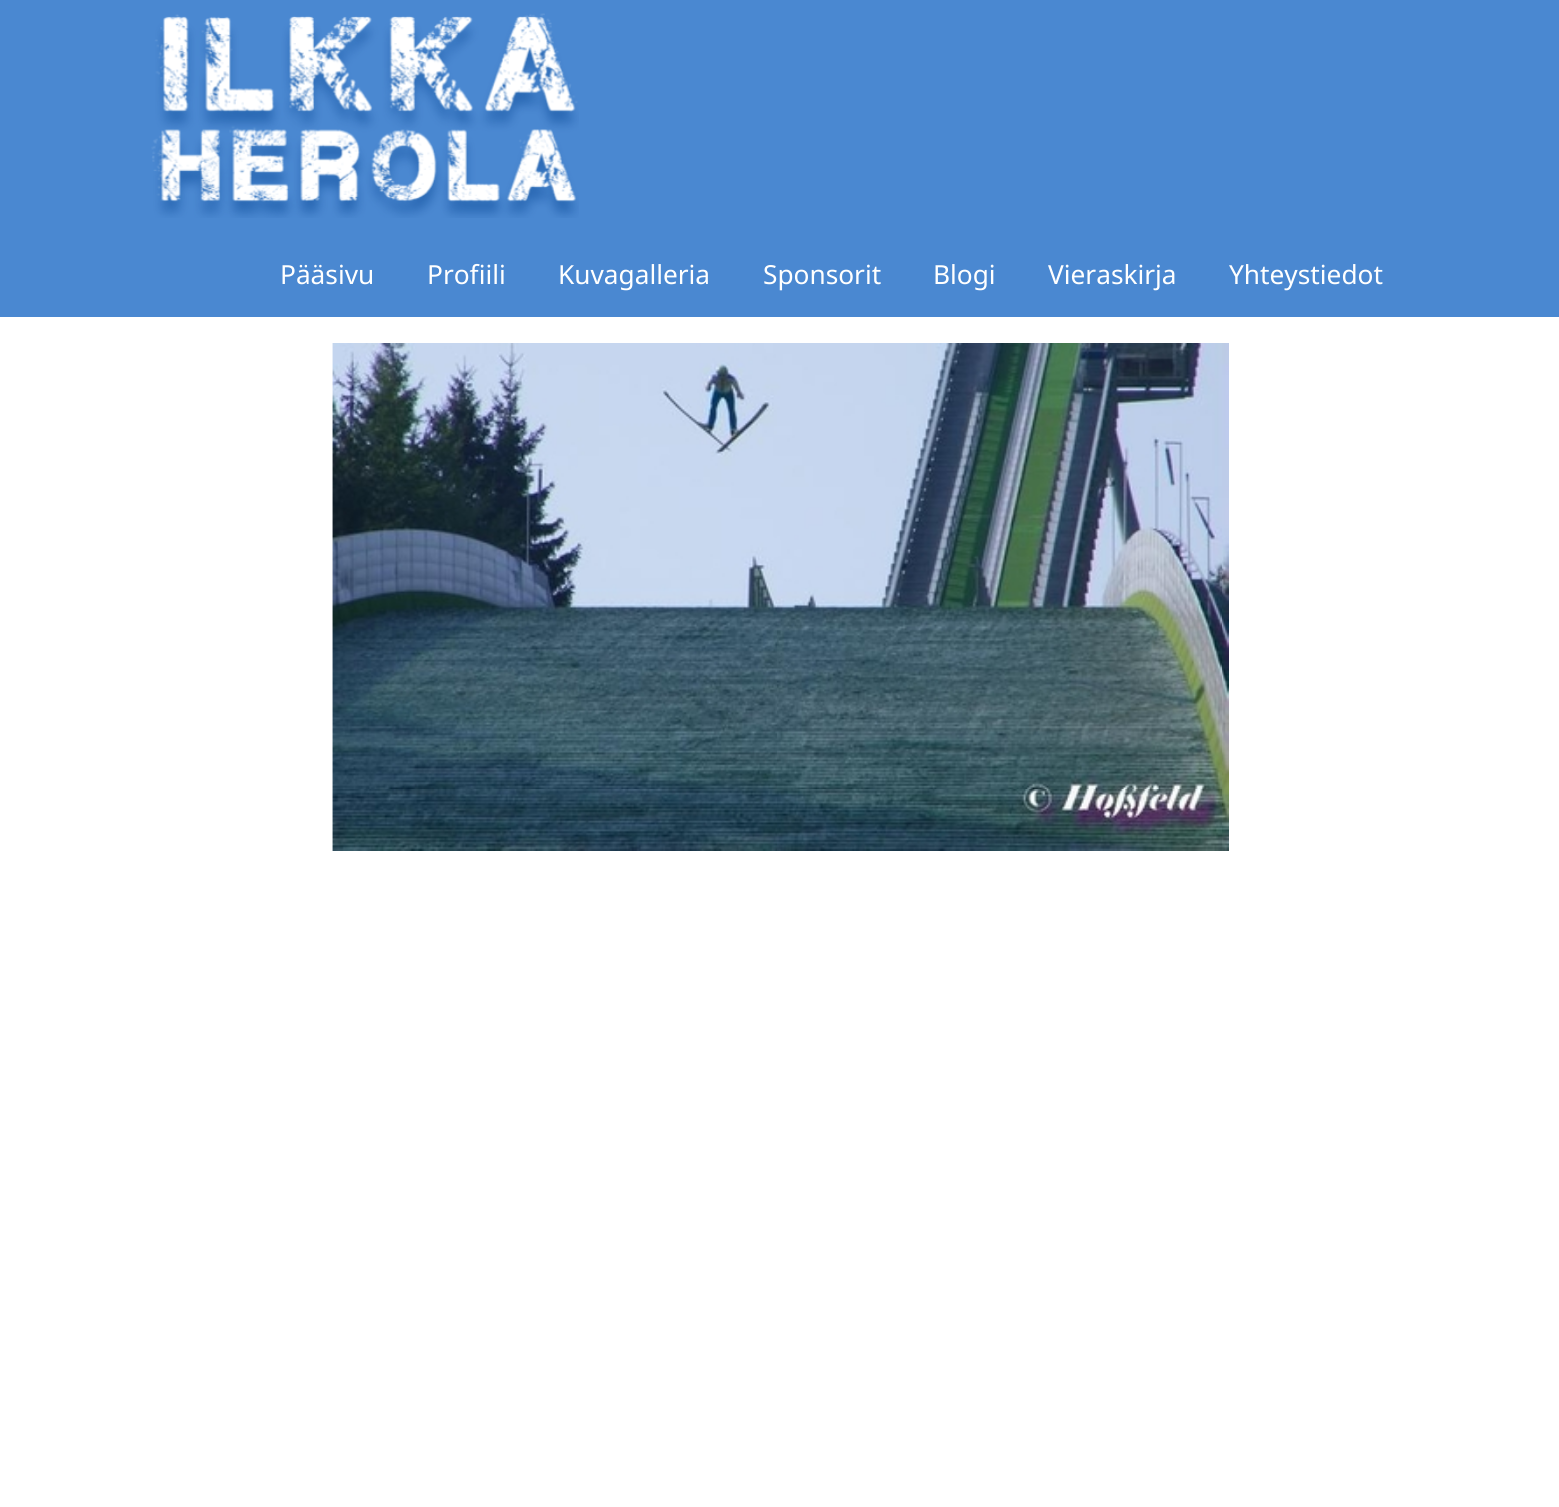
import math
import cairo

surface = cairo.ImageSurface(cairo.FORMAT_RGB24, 1559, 1507)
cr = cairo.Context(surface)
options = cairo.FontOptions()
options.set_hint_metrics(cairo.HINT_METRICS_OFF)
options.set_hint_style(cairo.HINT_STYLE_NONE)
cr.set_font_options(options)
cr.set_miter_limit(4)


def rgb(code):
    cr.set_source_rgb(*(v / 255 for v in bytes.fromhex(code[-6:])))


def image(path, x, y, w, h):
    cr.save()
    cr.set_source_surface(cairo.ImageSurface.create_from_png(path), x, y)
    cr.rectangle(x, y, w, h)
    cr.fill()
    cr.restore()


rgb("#ffffff")
cr.paint()
rgb("#4a88d1")
cr.rectangle(0, 0, 1559, 317)
cr.fill()
image("img/1.png", 151, 13, 428, 205)
image("img/2.png", 332, 343, 897, 508)
cr.select_font_face("Noto Sans")
cr.set_font_size(26.25)
rgb("#ffffff")
for x, y, s in [
    (280, 284, "Pääsivu"),
    (427, 284, "Profiili"),
    (558, 284, "Kuvagalleria"),
    (763, 284, "Sponsorit"),
    (933, 284, "Blogi"),
    (1048, 284, "Vieraskirja"),
    (1229, 284, "Yhteystiedot"),
]:
    cr.move_to(x, y)
    cr.show_text(s)
surface.write_to_png("page.png")
